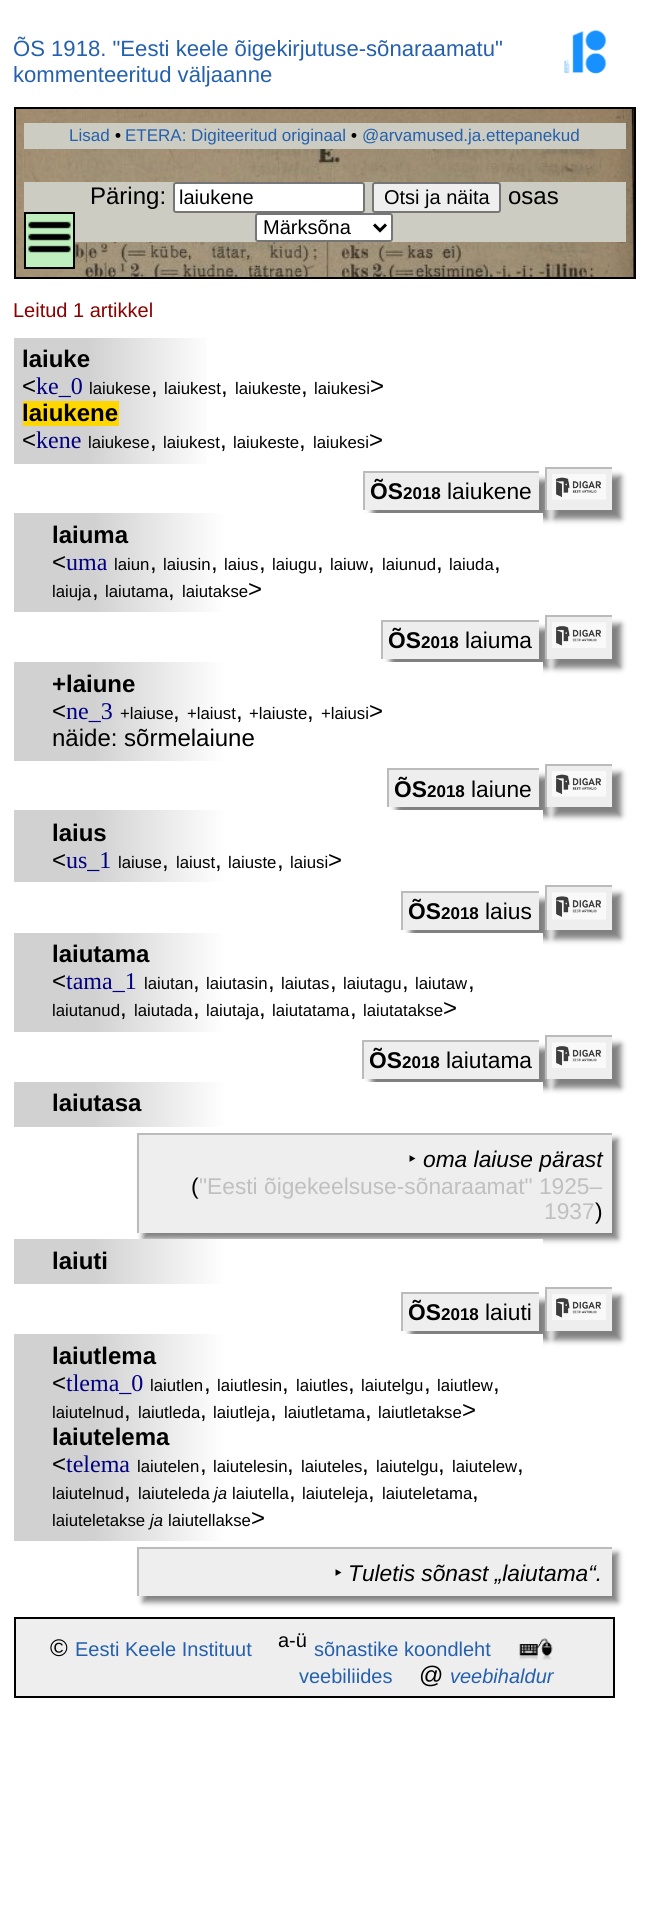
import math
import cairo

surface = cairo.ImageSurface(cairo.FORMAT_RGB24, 654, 1908)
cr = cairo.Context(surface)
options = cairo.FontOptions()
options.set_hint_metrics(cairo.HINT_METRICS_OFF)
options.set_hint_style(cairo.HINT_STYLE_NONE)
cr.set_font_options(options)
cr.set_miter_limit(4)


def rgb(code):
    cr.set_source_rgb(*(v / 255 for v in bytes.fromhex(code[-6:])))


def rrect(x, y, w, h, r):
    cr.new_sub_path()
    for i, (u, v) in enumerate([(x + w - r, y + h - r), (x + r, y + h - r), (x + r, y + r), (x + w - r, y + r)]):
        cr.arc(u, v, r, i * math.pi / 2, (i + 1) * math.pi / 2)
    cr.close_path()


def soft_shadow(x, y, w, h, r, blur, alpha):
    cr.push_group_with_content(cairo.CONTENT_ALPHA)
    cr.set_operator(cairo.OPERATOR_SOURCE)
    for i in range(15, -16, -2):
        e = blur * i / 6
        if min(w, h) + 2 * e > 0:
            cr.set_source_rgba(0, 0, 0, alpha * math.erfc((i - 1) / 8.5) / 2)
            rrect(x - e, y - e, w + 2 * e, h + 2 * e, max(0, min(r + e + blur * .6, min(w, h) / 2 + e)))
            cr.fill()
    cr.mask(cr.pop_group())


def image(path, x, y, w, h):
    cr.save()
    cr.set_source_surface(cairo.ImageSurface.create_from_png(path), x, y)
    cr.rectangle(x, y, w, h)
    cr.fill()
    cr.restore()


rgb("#ffffff")
cr.paint()
image("img/1.png", 564, 30, 43, 44)
image("img/2.png", 16, 109, 618, 168)
cr.rectangle(15, 108, 620, 170)
rgb("#000000")
cr.stroke()
rgb("#ccccc2")
cr.rectangle(24, 123, 602, 26)
cr.fill()
cr.rectangle(24, 182, 602, 60)
cr.fill()
rgb("#bfeebf")
cr.rectangle(25, 213, 49, 55)
cr.fill_preserve()
rgb("#000000")
cr.stroke()
image("img/3.png", 28, 221, 43, 32)
rgb("#ffffff")
rrect(174, 183, 190, 29, 2)
cr.fill_preserve()
rgb("#767676")
cr.stroke()
rgb("#efefef")
rrect(373, 183, 127, 29, 2)
cr.fill_preserve()
rgb("#767676")
cr.stroke()
rgb("#ffffff")
rrect(256, 214, 136, 27, 2)
cr.fill_preserve()
rgb("#767676")
cr.stroke()
cr.new_path()
cr.move_to(374, 224.5)
cr.line_to(380, 230.5)
cr.line_to(386, 224.5)
rgb("#000000")
cr.set_line_width(3)
cr.stroke()
gradient = cairo.LinearGradient(14, 401, 513, 401)
gradient.add_color_stop_rgba(0.15, 0.82, 0.82, 0.82, 1)
gradient.add_color_stop_rgba(0.4, 1, 1, 1, 1)
cr.set_source(gradient)
cr.rectangle(14, 338, 193, 126)
cr.fill()
rgb("#ffd700")
cr.rectangle(23, 401, 96, 25)
cr.fill()
rgb("#808080")
soft_shadow(372, 480, 176, 39, 0, 3, 1)
for x, y, w, h, color in [
    (365, 473, 174, 37, "#eeeeee"),
    (363, 471, 176, 2, "#bbbbbb"),
    (363, 471, 2, 39, "#bbbbbb"),
]:
    rgb(color)
    cr.rectangle(x, y, w, h)
    cr.fill()
rgb("#808080")
soft_shadow(554, 476, 67, 43, 0, 3, 1)
for x, y, w, h, color in [
    (547, 469, 65, 41, "#eeeeee"),
    (545, 467, 67, 2, "#bbbbbb"),
    (545, 467, 2, 43, "#bbbbbb"),
]:
    rgb(color)
    cr.rectangle(x, y, w, h)
    cr.fill()
image("img/4.png", 552, 474, 54, 26)
gradient = cairo.LinearGradient(14, 563, 543, 563)
gradient.add_color_stop_rgba(0.15, 0.82, 0.82, 0.82, 1)
gradient.add_color_stop_rgba(0.4, 1, 1, 1, 1)
cr.set_source(gradient)
cr.rectangle(14, 513, 529, 99)
cr.fill()
rgb("#808080")
soft_shadow(390, 629, 158, 39, 0, 3, 1)
for x, y, w, h, color in [
    (383, 622, 156, 37, "#eeeeee"),
    (381, 620, 158, 2, "#bbbbbb"),
    (381, 620, 2, 39, "#bbbbbb"),
]:
    rgb(color)
    cr.rectangle(x, y, w, h)
    cr.fill()
rgb("#808080")
soft_shadow(554, 624, 67, 44, 0, 3, 1)
for x, y, w, h, color in [
    (547, 617, 65, 42, "#eeeeee"),
    (545, 615, 67, 2, "#bbbbbb"),
    (545, 615, 2, 44, "#bbbbbb"),
]:
    rgb(color)
    cr.rectangle(x, y, w, h)
    cr.fill()
image("img/5.png", 552, 622, 54, 26)
gradient = cairo.LinearGradient(14, 711, 543, 711)
gradient.add_color_stop_rgba(0.15, 0.82, 0.82, 0.82, 1)
gradient.add_color_stop_rgba(0.4, 1, 1, 1, 1)
cr.set_source(gradient)
cr.rectangle(14, 662, 529, 99)
cr.fill()
rgb("#808080")
soft_shadow(396, 777, 152, 39, 0, 3, 1)
for x, y, w, h, color in [
    (389, 770, 150, 37, "#eeeeee"),
    (387, 768, 152, 2, "#bbbbbb"),
    (387, 768, 2, 39, "#bbbbbb"),
]:
    rgb(color)
    cr.rectangle(x, y, w, h)
    cr.fill()
rgb("#808080")
soft_shadow(554, 773, 67, 43, 0, 3, 1)
for x, y, w, h, color in [
    (547, 766, 65, 41, "#eeeeee"),
    (545, 764, 67, 2, "#bbbbbb"),
    (545, 764, 2, 43, "#bbbbbb"),
]:
    rgb(color)
    cr.rectangle(x, y, w, h)
    cr.fill()
image("img/4.png", 552, 771, 54, 26)
gradient = cairo.LinearGradient(14, 846, 543, 846)
gradient.add_color_stop_rgba(0.15, 0.82, 0.82, 0.82, 1)
gradient.add_color_stop_rgba(0.4, 1, 1, 1, 1)
cr.set_source(gradient)
cr.rectangle(14, 810, 529, 72)
cr.fill()
rgb("#808080")
soft_shadow(410, 900, 138, 39, 0, 3, 1)
for x, y, w, h, color in [
    (403, 893, 136, 37, "#eeeeee"),
    (401, 891, 138, 2, "#bbbbbb"),
    (401, 891, 2, 39, "#bbbbbb"),
]:
    rgb(color)
    cr.rectangle(x, y, w, h)
    cr.fill()
rgb("#808080")
soft_shadow(554, 894, 67, 45, 0, 3, 1)
for x, y, w, h, color in [
    (547, 887, 65, 43, "#eeeeee"),
    (545, 885, 67, 2, "#bbbbbb"),
    (545, 885, 2, 45, "#bbbbbb"),
]:
    rgb(color)
    cr.rectangle(x, y, w, h)
    cr.fill()
image("img/6.png", 552, 892, 54, 28)
gradient = cairo.LinearGradient(14, 983, 543, 983)
gradient.add_color_stop_rgba(0.15, 0.82, 0.82, 0.82, 1)
gradient.add_color_stop_rgba(0.4, 1, 1, 1, 1)
cr.set_source(gradient)
cr.rectangle(14, 933, 529, 99)
cr.fill()
rgb("#808080")
soft_shadow(371, 1049, 177, 39, 0, 3, 1)
for x, y, w, h, color in [
    (364, 1042, 175, 37, "#eeeeee"),
    (362, 1040, 177, 2, "#bbbbbb"),
    (362, 1040, 2, 39, "#bbbbbb"),
]:
    rgb(color)
    cr.rectangle(x, y, w, h)
    cr.fill()
rgb("#808080")
soft_shadow(554, 1044, 67, 44, 0, 3, 1)
for x, y, w, h, color in [
    (547, 1037, 65, 42, "#eeeeee"),
    (545, 1035, 67, 2, "#bbbbbb"),
    (545, 1035, 2, 44, "#bbbbbb"),
]:
    rgb(color)
    cr.rectangle(x, y, w, h)
    cr.fill()
image("img/5.png", 552, 1042, 54, 26)
gradient = cairo.LinearGradient(14, 1104, 543, 1104)
gradient.add_color_stop_rgba(0.15, 0.82, 0.82, 0.82, 1)
gradient.add_color_stop_rgba(0.4, 1, 1, 1, 1)
cr.set_source(gradient)
cr.rectangle(14, 1082, 529, 45)
cr.fill()
rgb("#808080")
soft_shadow(143, 1139, 475, 100, 0, 3, 1)
for x, y, w, h, color in [
    (139, 1135, 473, 98, "#eeeeee"),
    (137, 1133, 475, 2, "#bbbbbb"),
    (137, 1133, 2, 100, "#bbbbbb"),
]:
    rgb(color)
    cr.rectangle(x, y, w, h)
    cr.fill()
gradient = cairo.LinearGradient(14, 1262, 543, 1262)
gradient.add_color_stop_rgba(0.15, 0.82, 0.82, 0.82, 1)
gradient.add_color_stop_rgba(0.4, 1, 1, 1, 1)
cr.set_source(gradient)
cr.rectangle(14, 1239, 529, 45)
cr.fill()
rgb("#808080")
soft_shadow(410, 1301, 138, 39, 0, 3, 1)
for x, y, w, h, color in [
    (403, 1294, 136, 37, "#eeeeee"),
    (401, 1292, 138, 2, "#bbbbbb"),
    (401, 1292, 2, 39, "#bbbbbb"),
]:
    rgb(color)
    cr.rectangle(x, y, w, h)
    cr.fill()
rgb("#808080")
soft_shadow(554, 1296, 67, 44, 0, 3, 1)
for x, y, w, h, color in [
    (547, 1289, 65, 42, "#eeeeee"),
    (545, 1287, 67, 2, "#bbbbbb"),
    (545, 1287, 2, 44, "#bbbbbb"),
]:
    rgb(color)
    cr.rectangle(x, y, w, h)
    cr.fill()
image("img/5.png", 552, 1294, 54, 26)
gradient = cairo.LinearGradient(14, 1437, 543, 1437)
gradient.add_color_stop_rgba(0.15, 0.82, 0.82, 0.82, 1)
gradient.add_color_stop_rgba(0.4, 1, 1, 1, 1)
cr.set_source(gradient)
cr.rectangle(14, 1334, 529, 207)
cr.fill()
rgb("#808080")
soft_shadow(143, 1553, 475, 49, 0, 3, 1)
for x, y, w, h, color in [
    (139, 1549, 473, 47, "#eeeeee"),
    (137, 1547, 475, 2, "#bbbbbb"),
    (137, 1547, 2, 49, "#bbbbbb"),
]:
    rgb(color)
    cr.rectangle(x, y, w, h)
    cr.fill()
rgb("#eeeeee")
cr.rectangle(15, 1618, 599, 79)
cr.fill_preserve()
rgb("#000000")
cr.set_line_width(2)
cr.stroke()
image("img/7.png", 519, 1638, 34, 22)
cr.select_font_face("Liberation Sans")
cr.set_font_size(22.1)
rgb("#2460ad")
cr.move_to(13, 56)
cr.show_text("ÕS 1918. \"Eesti keele õigekirjutuse-sõnaraamatu\"")
cr.move_to(13, 82)
cr.show_text("kommenteeritud väljaanne")
cr.set_font_size(17)
cr.move_to(69, 141)
cr.show_text("Lisad")
cr.select_font_face("Liberation Sans", cairo.FONT_SLANT_NORMAL, cairo.FONT_WEIGHT_BOLD)
rgb("#000000")
cr.move_to(115, 141)
cr.show_text("•")
cr.select_font_face("Liberation Sans")
rgb("#2460ad")
cr.move_to(125, 141)
cr.show_text("ETERA: Digiteeritud originaal")
cr.select_font_face("Liberation Sans", cairo.FONT_SLANT_NORMAL, cairo.FONT_WEIGHT_BOLD)
rgb("#000000")
cr.move_to(351, 141)
cr.show_text("•")
cr.select_font_face("Liberation Sans")
rgb("#2460ad")
cr.move_to(362, 141)
cr.show_text("@arvamused.ja.ettepanekud")
cr.set_font_size(24)
rgb("#000000")
cr.move_to(90, 204)
cr.show_text("Päring:")
cr.set_font_size(20)
cr.move_to(179, 204)
cr.show_text("laiukene")
cr.move_to(384, 204)
cr.show_text("Otsi ja näita")
cr.set_font_size(24)
cr.move_to(508, 204)
cr.show_text("osas")
cr.set_font_size(20)
cr.move_to(263, 234)
cr.show_text("Märksõna")
rgb("#8b0000")
cr.move_to(13, 317)
cr.show_text("Leitud 1 artikkel")
cr.select_font_face("Liberation Sans", cairo.FONT_SLANT_NORMAL, cairo.FONT_WEIGHT_BOLD)
cr.set_font_size(24)
rgb("#000000")
cr.move_to(22, 367)
cr.show_text("laiuke")
cr.select_font_face("Liberation Sans")
cr.move_to(22, 394)
cr.show_text("<")
cr.select_font_face("Liberation Serif")
rgb("#000080")
cr.move_to(36, 394)
cr.show_text("ke_0")
cr.select_font_face("Liberation Sans")
cr.set_font_size(16.75)
rgb("#000000")
cr.move_to(89, 394)
cr.show_text("laiukese")
cr.set_font_size(24)
cr.move_to(151, 394)
cr.show_text(",")
cr.set_font_size(16.75)
cr.move_to(164, 394)
cr.show_text("laiukest")
cr.set_font_size(24)
cr.move_to(221, 394)
cr.show_text(",")
cr.set_font_size(16.75)
cr.move_to(235, 394)
cr.show_text("laiukeste")
cr.set_font_size(24)
cr.move_to(301, 394)
cr.show_text(",")
cr.set_font_size(16.75)
cr.move_to(314, 394)
cr.show_text("laiukesi")
cr.set_font_size(24)
cr.move_to(370, 394)
cr.show_text(">")
cr.select_font_face("Liberation Sans", cairo.FONT_SLANT_NORMAL, cairo.FONT_WEIGHT_BOLD)
cr.move_to(22, 421)
cr.show_text("laiukene")
cr.select_font_face("Liberation Sans")
cr.move_to(22, 448)
cr.show_text("<")
cr.select_font_face("Liberation Serif")
rgb("#000080")
cr.move_to(36, 448)
cr.show_text("kene")
cr.select_font_face("Liberation Sans")
cr.set_font_size(16.75)
rgb("#000000")
cr.move_to(88, 448)
cr.show_text("laiukese")
cr.set_font_size(24)
cr.move_to(150, 448)
cr.show_text(",")
cr.set_font_size(16.75)
cr.move_to(163, 448)
cr.show_text("laiukest")
cr.set_font_size(24)
cr.move_to(220, 448)
cr.show_text(",")
cr.set_font_size(16.75)
cr.move_to(233, 448)
cr.show_text("laiukeste")
cr.set_font_size(24)
cr.move_to(299, 448)
cr.show_text(",")
cr.set_font_size(16.75)
cr.move_to(313, 448)
cr.show_text("laiukesi")
cr.set_font_size(24)
cr.move_to(369, 448)
cr.show_text(">")
cr.select_font_face("Liberation Sans", cairo.FONT_SLANT_NORMAL, cairo.FONT_WEIGHT_BOLD)
cr.set_font_size(22.75)
cr.move_to(370, 499)
cr.show_text("ÕS")
cr.set_font_size(17)
cr.move_to(403, 499)
cr.show_text("2018")
cr.select_font_face("Liberation Sans")
cr.set_font_size(22.75)
cr.move_to(447, 499)
cr.show_text("laiukene")
cr.select_font_face("Liberation Sans", cairo.FONT_SLANT_NORMAL, cairo.FONT_WEIGHT_BOLD)
cr.set_font_size(24)
cr.move_to(52, 543)
cr.show_text("laiuma")
cr.select_font_face("Liberation Sans")
cr.move_to(52, 570)
cr.show_text("<")
cr.select_font_face("Liberation Serif")
rgb("#000080")
cr.move_to(66, 570)
cr.show_text("uma")
cr.select_font_face("Liberation Sans")
cr.set_font_size(16.75)
rgb("#000000")
cr.move_to(114, 570)
cr.show_text("laiun")
cr.set_font_size(24)
cr.move_to(150, 570)
cr.show_text(",")
cr.set_font_size(16.75)
cr.move_to(163, 570)
cr.show_text("laiusin")
cr.set_font_size(24)
cr.move_to(211, 570)
cr.show_text(",")
cr.set_font_size(16.75)
cr.move_to(224, 570)
cr.show_text("laius")
cr.set_font_size(24)
cr.move_to(259, 570)
cr.show_text(",")
cr.set_font_size(16.75)
cr.move_to(272, 570)
cr.show_text("laiugu")
cr.set_font_size(24)
cr.move_to(317, 570)
cr.show_text(",")
cr.set_font_size(16.75)
cr.move_to(330, 570)
cr.show_text("laiuw")
cr.set_font_size(24)
cr.move_to(368, 570)
cr.show_text(",")
cr.set_font_size(16.75)
cr.move_to(382, 570)
cr.show_text("laiunud")
cr.set_font_size(24)
cr.move_to(436, 570)
cr.show_text(",")
cr.set_font_size(16.75)
cr.move_to(449, 570)
cr.show_text("laiuda")
cr.set_font_size(24)
cr.move_to(494, 570)
cr.show_text(",")
cr.set_font_size(16.75)
cr.move_to(52, 597)
cr.show_text("laiuja")
cr.set_font_size(24)
cr.move_to(92, 597)
cr.show_text(",")
cr.set_font_size(16.75)
cr.move_to(105, 597)
cr.show_text("laiutama")
cr.set_font_size(24)
cr.move_to(168, 597)
cr.show_text(",")
cr.set_font_size(16.75)
cr.move_to(182, 597)
cr.show_text("laiutakse")
cr.set_font_size(24)
cr.move_to(248, 597)
cr.show_text(">")
cr.select_font_face("Liberation Sans", cairo.FONT_SLANT_NORMAL, cairo.FONT_WEIGHT_BOLD)
cr.set_font_size(22.75)
cr.move_to(388, 648)
cr.show_text("ÕS")
cr.set_font_size(17)
cr.move_to(421, 648)
cr.show_text("2018")
cr.select_font_face("Liberation Sans")
cr.set_font_size(22.75)
cr.move_to(465, 648)
cr.show_text("laiuma")
cr.select_font_face("Liberation Sans", cairo.FONT_SLANT_NORMAL, cairo.FONT_WEIGHT_BOLD)
cr.set_font_size(24)
cr.move_to(52, 692)
cr.show_text("+laiune")
cr.select_font_face("Liberation Sans")
cr.move_to(52, 719)
cr.show_text("<")
cr.select_font_face("Liberation Serif")
rgb("#000080")
cr.move_to(66, 719)
cr.show_text("ne_3")
cr.select_font_face("Liberation Sans")
cr.set_font_size(16.75)
rgb("#000000")
cr.move_to(120, 719)
cr.show_text("+laiuse")
cr.set_font_size(24)
cr.move_to(173, 719)
cr.show_text(",")
cr.set_font_size(16.75)
cr.move_to(187, 719)
cr.show_text("+laiust")
cr.set_font_size(24)
cr.move_to(236, 719)
cr.show_text(",")
cr.set_font_size(16.75)
cr.move_to(249, 719)
cr.show_text("+laiuste")
cr.set_font_size(24)
cr.move_to(307, 719)
cr.show_text(",")
cr.set_font_size(16.75)
cr.move_to(321, 719)
cr.show_text("+laiusi")
cr.set_font_size(24)
cr.move_to(369, 719)
cr.show_text(">")
cr.move_to(52, 746)
cr.show_text("näide: sõrmelaiune")
cr.select_font_face("Liberation Sans", cairo.FONT_SLANT_NORMAL, cairo.FONT_WEIGHT_BOLD)
cr.set_font_size(22.75)
cr.move_to(394, 797)
cr.show_text("ÕS")
cr.set_font_size(17)
cr.move_to(427, 797)
cr.show_text("2018")
cr.select_font_face("Liberation Sans")
cr.set_font_size(22.75)
cr.move_to(471, 797)
cr.show_text("laiune")
cr.select_font_face("Liberation Sans", cairo.FONT_SLANT_NORMAL, cairo.FONT_WEIGHT_BOLD)
cr.set_font_size(24)
cr.move_to(52, 841)
cr.show_text("laius")
cr.select_font_face("Liberation Sans")
cr.move_to(52, 868)
cr.show_text("<")
cr.select_font_face("Liberation Serif")
rgb("#000080")
cr.move_to(66, 868)
cr.show_text("us_1")
cr.select_font_face("Liberation Sans")
cr.set_font_size(16.75)
rgb("#000000")
cr.move_to(118, 868)
cr.show_text("laiuse")
cr.set_font_size(24)
cr.move_to(162, 868)
cr.show_text(",")
cr.set_font_size(16.75)
cr.move_to(176, 868)
cr.show_text("laiust")
cr.set_font_size(24)
cr.move_to(215, 868)
cr.show_text(",")
cr.set_font_size(16.75)
cr.move_to(228, 868)
cr.show_text("laiuste")
cr.set_font_size(24)
cr.move_to(277, 868)
cr.show_text(",")
cr.set_font_size(16.75)
cr.move_to(290, 868)
cr.show_text("laiusi")
cr.set_font_size(24)
cr.move_to(328, 868)
cr.show_text(">")
cr.select_font_face("Liberation Sans", cairo.FONT_SLANT_NORMAL, cairo.FONT_WEIGHT_BOLD)
cr.set_font_size(22.75)
cr.move_to(408, 919)
cr.show_text("ÕS")
cr.set_font_size(17)
cr.move_to(441, 919)
cr.show_text("2018")
cr.select_font_face("Liberation Sans")
cr.set_font_size(22.75)
cr.move_to(485, 919)
cr.show_text("laius")
cr.select_font_face("Liberation Sans", cairo.FONT_SLANT_NORMAL, cairo.FONT_WEIGHT_BOLD)
cr.set_font_size(24)
cr.move_to(52, 962)
cr.show_text("laiutama")
cr.select_font_face("Liberation Sans")
cr.move_to(52, 989)
cr.show_text("<")
cr.select_font_face("Liberation Serif")
rgb("#000080")
cr.move_to(66, 989)
cr.show_text("tama_1")
cr.select_font_face("Liberation Sans")
cr.set_font_size(16.75)
rgb("#000000")
cr.move_to(144, 989)
cr.show_text("laiutan")
cr.set_font_size(24)
cr.move_to(193, 989)
cr.show_text(",")
cr.set_font_size(16.75)
cr.move_to(206, 989)
cr.show_text("laiutasin")
cr.set_font_size(24)
cr.move_to(268, 989)
cr.show_text(",")
cr.set_font_size(16.75)
cr.move_to(281, 989)
cr.show_text("laiutas")
cr.set_font_size(24)
cr.move_to(330, 989)
cr.show_text(",")
cr.set_font_size(16.75)
cr.move_to(343, 989)
cr.show_text("laiutagu")
cr.set_font_size(24)
cr.move_to(402, 989)
cr.show_text(",")
cr.set_font_size(16.75)
cr.move_to(415, 989)
cr.show_text("laiutaw")
cr.set_font_size(24)
cr.move_to(468, 989)
cr.show_text(",")
cr.set_font_size(16.75)
cr.move_to(52, 1016)
cr.show_text("laiutanud")
cr.set_font_size(24)
cr.move_to(120, 1016)
cr.show_text(",")
cr.set_font_size(16.75)
cr.move_to(134, 1016)
cr.show_text("laiutada")
cr.set_font_size(24)
cr.move_to(193, 1016)
cr.show_text(",")
cr.set_font_size(16.75)
cr.move_to(206, 1016)
cr.show_text("laiutaja")
cr.set_font_size(24)
cr.move_to(259, 1016)
cr.show_text(",")
cr.set_font_size(16.75)
cr.move_to(272, 1016)
cr.show_text("laiutatama")
cr.set_font_size(24)
cr.move_to(350, 1016)
cr.show_text(",")
cr.set_font_size(16.75)
cr.move_to(363, 1016)
cr.show_text("laiutatakse")
cr.set_font_size(24)
cr.move_to(443, 1016)
cr.show_text(">")
cr.select_font_face("Liberation Sans", cairo.FONT_SLANT_NORMAL, cairo.FONT_WEIGHT_BOLD)
cr.set_font_size(22.75)
cr.move_to(369, 1068)
cr.show_text("ÕS")
cr.set_font_size(17)
cr.move_to(402, 1068)
cr.show_text("2018")
cr.select_font_face("Liberation Sans")
cr.set_font_size(22.75)
cr.move_to(446, 1068)
cr.show_text("laiutama")
cr.select_font_face("Liberation Sans", cairo.FONT_SLANT_NORMAL, cairo.FONT_WEIGHT_BOLD)
cr.set_font_size(24)
cr.move_to(52, 1111)
cr.show_text("laiutasa")
cr.select_font_face("Noto Sans")
cr.set_font_size(22.75)
cr.move_to(408, 1167)
cr.show_text("‣")
cr.select_font_face("Liberation Sans", cairo.FONT_SLANT_ITALIC)
cr.move_to(423, 1167)
cr.show_text("oma laiuse pärast")
cr.select_font_face("Liberation Sans")
cr.move_to(191, 1194)
cr.show_text("(")
rgb("#c0c0c0")
cr.move_to(199, 1194)
cr.show_text("\"Eesti õigekeelsuse-sõnaraamat\" 1925–")
cr.move_to(544, 1219)
cr.show_text("1937")
rgb("#000000")
cr.move_to(595, 1219)
cr.show_text(")")
cr.select_font_face("Liberation Sans", cairo.FONT_SLANT_NORMAL, cairo.FONT_WEIGHT_BOLD)
cr.set_font_size(24)
cr.move_to(52, 1269)
cr.show_text("laiuti")
cr.set_font_size(22.75)
cr.move_to(408, 1320)
cr.show_text("ÕS")
cr.set_font_size(17)
cr.move_to(441, 1320)
cr.show_text("2018")
cr.select_font_face("Liberation Sans")
cr.set_font_size(22.75)
cr.move_to(485, 1320)
cr.show_text("laiuti")
cr.select_font_face("Liberation Sans", cairo.FONT_SLANT_NORMAL, cairo.FONT_WEIGHT_BOLD)
cr.set_font_size(24)
cr.move_to(52, 1364)
cr.show_text("laiutlema")
cr.select_font_face("Liberation Sans")
cr.move_to(52, 1391)
cr.show_text("<")
cr.select_font_face("Liberation Serif")
rgb("#000080")
cr.move_to(66, 1391)
cr.show_text("tlema_0")
cr.select_font_face("Liberation Sans")
cr.set_font_size(16.75)
rgb("#000000")
cr.move_to(150, 1391)
cr.show_text("laiutlen")
cr.set_font_size(24)
cr.move_to(204, 1391)
cr.show_text(",")
cr.set_font_size(16.75)
cr.move_to(217, 1391)
cr.show_text("laiutlesin")
cr.set_font_size(24)
cr.move_to(282, 1391)
cr.show_text(",")
cr.set_font_size(16.75)
cr.move_to(296, 1391)
cr.show_text("laiutles")
cr.set_font_size(24)
cr.move_to(348, 1391)
cr.show_text(",")
cr.set_font_size(16.75)
cr.move_to(361, 1391)
cr.show_text("laiutelgu")
cr.set_font_size(24)
cr.move_to(424, 1391)
cr.show_text(",")
cr.set_font_size(16.75)
cr.move_to(437, 1391)
cr.show_text("laiutlew")
cr.set_font_size(24)
cr.move_to(493, 1391)
cr.show_text(",")
cr.set_font_size(16.75)
cr.move_to(52, 1418)
cr.show_text("laiutelnud")
cr.set_font_size(24)
cr.move_to(124, 1418)
cr.show_text(",")
cr.set_font_size(16.75)
cr.move_to(138, 1418)
cr.show_text("laiutleda")
cr.set_font_size(24)
cr.move_to(200, 1418)
cr.show_text(",")
cr.set_font_size(16.75)
cr.move_to(213, 1418)
cr.show_text("laiutleja")
cr.set_font_size(24)
cr.move_to(270, 1418)
cr.show_text(",")
cr.set_font_size(16.75)
cr.move_to(284, 1418)
cr.show_text("laiutletama")
cr.set_font_size(24)
cr.move_to(365, 1418)
cr.show_text(",")
cr.set_font_size(16.75)
cr.move_to(378, 1418)
cr.show_text("laiutletakse")
cr.set_font_size(24)
cr.move_to(462, 1418)
cr.show_text(">")
cr.select_font_face("Liberation Sans", cairo.FONT_SLANT_NORMAL, cairo.FONT_WEIGHT_BOLD)
cr.move_to(52, 1445)
cr.show_text("laiutelema")
cr.select_font_face("Liberation Sans")
cr.move_to(52, 1472)
cr.show_text("<")
cr.select_font_face("Liberation Serif")
rgb("#000080")
cr.move_to(66, 1472)
cr.show_text("telema")
cr.select_font_face("Liberation Sans")
cr.set_font_size(16.75)
rgb("#000000")
cr.move_to(137, 1472)
cr.show_text("laiutelen")
cr.set_font_size(24)
cr.move_to(200, 1472)
cr.show_text(",")
cr.set_font_size(16.75)
cr.move_to(213, 1472)
cr.show_text("laiutelesin")
cr.set_font_size(24)
cr.move_to(287, 1472)
cr.show_text(",")
cr.set_font_size(16.75)
cr.move_to(301, 1472)
cr.show_text("laiuteles")
cr.set_font_size(24)
cr.move_to(362, 1472)
cr.show_text(",")
cr.set_font_size(16.75)
cr.move_to(376, 1472)
cr.show_text("laiutelgu")
cr.set_font_size(24)
cr.move_to(438, 1472)
cr.show_text(",")
cr.set_font_size(16.75)
cr.move_to(452, 1472)
cr.show_text("laiutelew")
cr.set_font_size(24)
cr.move_to(517, 1472)
cr.show_text(",")
cr.set_font_size(16.75)
cr.move_to(52, 1499)
cr.show_text("laiutelnud")
cr.set_font_size(24)
cr.move_to(124, 1499)
cr.show_text(",")
cr.set_font_size(16.75)
cr.move_to(138, 1499)
cr.show_text("laiuteleda")
cr.select_font_face("Liberation Sans", cairo.FONT_SLANT_ITALIC)
cr.move_to(214, 1499)
cr.show_text("ja")
cr.select_font_face("Liberation Sans")
cr.move_to(232, 1499)
cr.show_text("laiutella")
cr.set_font_size(24)
cr.move_to(289, 1499)
cr.show_text(",")
cr.set_font_size(16.75)
cr.move_to(302, 1499)
cr.show_text("laiuteleja")
cr.set_font_size(24)
cr.move_to(368, 1499)
cr.show_text(",")
cr.set_font_size(16.75)
cr.move_to(382, 1499)
cr.show_text("laiuteletama")
cr.set_font_size(24)
cr.move_to(472, 1499)
cr.show_text(",")
cr.set_font_size(16.75)
cr.move_to(52, 1526)
cr.show_text("laiuteletakse")
cr.select_font_face("Liberation Sans", cairo.FONT_SLANT_ITALIC)
cr.move_to(150, 1526)
cr.show_text("ja")
cr.select_font_face("Liberation Sans")
cr.move_to(168, 1526)
cr.show_text("laiutellakse")
cr.set_font_size(24)
cr.move_to(251, 1526)
cr.show_text(">")
cr.select_font_face("Noto Sans")
cr.set_font_size(22.75)
cr.move_to(334, 1581)
cr.show_text("‣")
cr.select_font_face("Liberation Sans", cairo.FONT_SLANT_ITALIC)
cr.move_to(348, 1581)
cr.show_text("Tuletis sõnast „laiutama“.")
cr.select_font_face("Liberation Sans")
cr.set_font_size(24)
cr.move_to(50, 1656)
cr.show_text("©")
cr.set_font_size(20)
rgb("#2460ad")
cr.move_to(75, 1656)
cr.show_text("Eesti Keele Instituut")
rgb("#000000")
cr.move_to(278, 1647)
cr.show_text("a-ü")
rgb("#2460ad")
cr.move_to(314, 1656)
cr.show_text("sõnastike koondleht")
cr.move_to(299, 1683)
cr.show_text("veebiliides")
cr.set_font_size(24)
rgb("#000000")
cr.move_to(419, 1683)
cr.show_text("@")
cr.select_font_face("Liberation Sans", cairo.FONT_SLANT_ITALIC)
cr.set_font_size(20)
rgb("#2460ad")
cr.move_to(450, 1683)
cr.show_text("veebihaldur")
surface.write_to_png("page.png")
